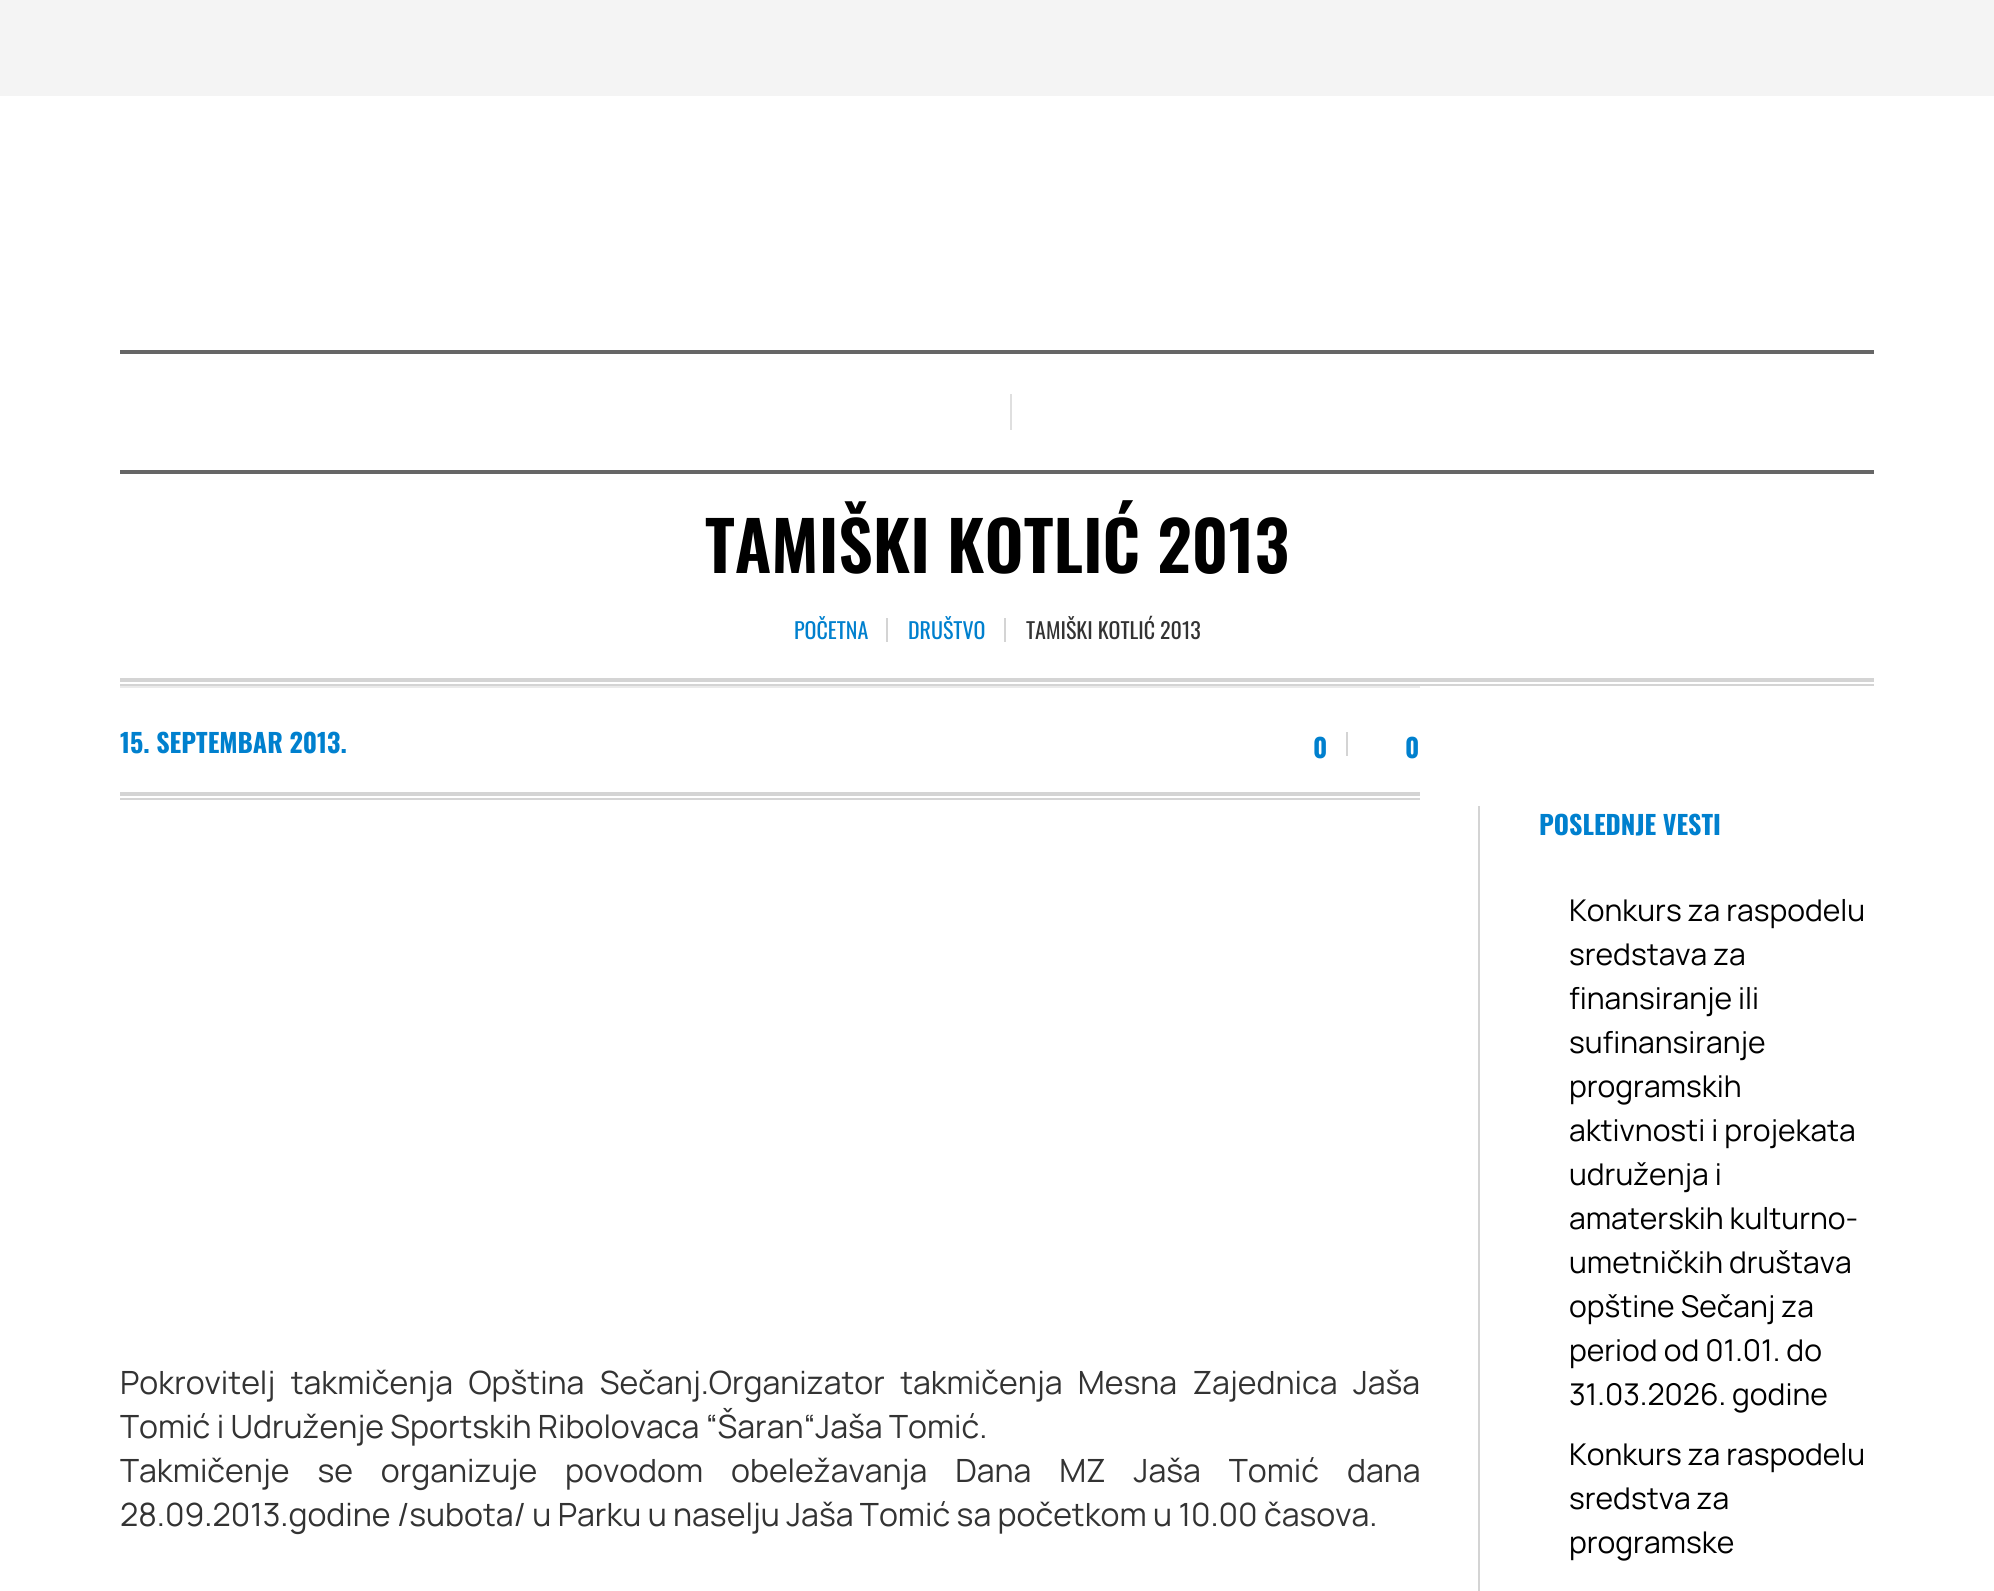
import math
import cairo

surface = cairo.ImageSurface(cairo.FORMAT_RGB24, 1994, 1591)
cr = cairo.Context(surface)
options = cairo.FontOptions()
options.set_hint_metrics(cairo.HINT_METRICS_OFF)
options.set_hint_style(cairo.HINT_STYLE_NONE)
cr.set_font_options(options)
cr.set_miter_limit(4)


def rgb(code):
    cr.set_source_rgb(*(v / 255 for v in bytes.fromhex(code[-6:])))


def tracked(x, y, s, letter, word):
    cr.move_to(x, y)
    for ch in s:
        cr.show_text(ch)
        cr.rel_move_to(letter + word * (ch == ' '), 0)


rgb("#f4f4f4")
cr.paint()
for x, y, w, h, color in [
    (0, 96, 1994, 378, "#ffffff"),
    (120, 350, 1754, 4, "#666666"),
    (120, 470, 1754, 4, "#666666"),
    (1010, 394, 2, 36, "#dfdfdf"),
    (0, 474, 1994, 1117, "#ffffff"),
    (120, 678, 1754, 4, "#d4d4d4"),
    (120, 684, 1754, 2, "#d4d4d4"),
    (886, 618, 2, 24, "#d4d4d4"),
    (1004, 618, 2, 24, "#d4d4d4"),
    (120, 792, 1300, 4, "#d4d4d4"),
    (120, 798, 1300, 2, "#d4d4d4"),
    (120, 686, 1300, 2, "#eaeaea"),
    (1346, 732, 2, 24, "#d4d4d4"),
    (1478, 806, 2, 785, "#d4d4d4"),
]:
    rgb(color)
    cr.rectangle(x, y, w, h)
    cr.fill()
cr.select_font_face("Oswald SemiBold")
cr.set_font_size(68)
rgb("#000000")
cr.move_to(705, 573)
cr.show_text("TAMIŠKI KOTLIĆ 2013")
cr.select_font_face("Oswald")
cr.set_font_size(22)
rgb("#0080ce")
cr.move_to(794, 639)
cr.show_text("POČETNA")
cr.move_to(908, 639)
cr.show_text("DRUŠTVO")
rgb("#333333")
cr.move_to(1026, 639)
cr.show_text("TAMIŠKI KOTLIĆ 2013")
cr.select_font_face("Oswald", cairo.FONT_SLANT_NORMAL, cairo.FONT_WEIGHT_BOLD)
cr.set_font_size(26)
rgb("#0080ce")
for x, y, s in [
    (120, 753, "15. SEPTEMBAR 2013."),
    (1313, 758, "0"),
    (1405, 758, "0"),
]:
    cr.move_to(x, y)
    cr.show_text(s)
cr.select_font_face("Manrope")
cr.set_font_size(32)
rgb("#333333")
tracked(120, 1394, "Pokrovitelj takmičenja Opština Sečanj.Organizator takmičenja Mesna Zajednica Jaša", 0, 9)
cr.move_to(120, 1438)
cr.show_text("Tomić i Udruženje Sportskih Ribolovaca “Šaran“Jaša Tomić.")
tracked(120, 1482, "Takmičenje se organizuje povodom obeležavanja Dana MZ Jaša Tomić dana", 0, 21.5)
cr.move_to(120, 1526)
cr.show_text("28.09.2013.godine /subota/ u Parku u naselju Jaša Tomić sa početkom u 10.00 časova.")
cr.select_font_face("Oswald", cairo.FONT_SLANT_NORMAL, cairo.FONT_WEIGHT_BOLD)
cr.set_font_size(26)
rgb("#0080ce")
cr.move_to(1539, 835)
cr.show_text("POSLEDNJE VESTI")
cr.select_font_face("Manrope")
cr.set_font_size(30)
rgb("#000000")
for x, y, s in [
    (1569, 921, "Konkurs za raspodelu"),
    (1569, 965, "sredstava za"),
    (1569, 1009, "finansiranje ili"),
    (1569, 1053, "sufinansiranje"),
    (1569, 1097, "programskih"),
    (1569, 1141, "aktivnosti i projekata"),
    (1569, 1185, "udruženja i"),
    (1569, 1229, "amaterskih kulturno-"),
    (1569, 1273, "umetničkih društava"),
    (1569, 1317, "opštine Sečanj za"),
    (1569, 1361, "period od 01.01. do"),
    (1569, 1405, "31.03.2026. godine"),
    (1569, 1465, "Konkurs za raspodelu"),
    (1569, 1509, "sredstva za"),
    (1569, 1553, "programske"),
]:
    cr.move_to(x, y)
    cr.show_text(s)
surface.write_to_png("page.png")
